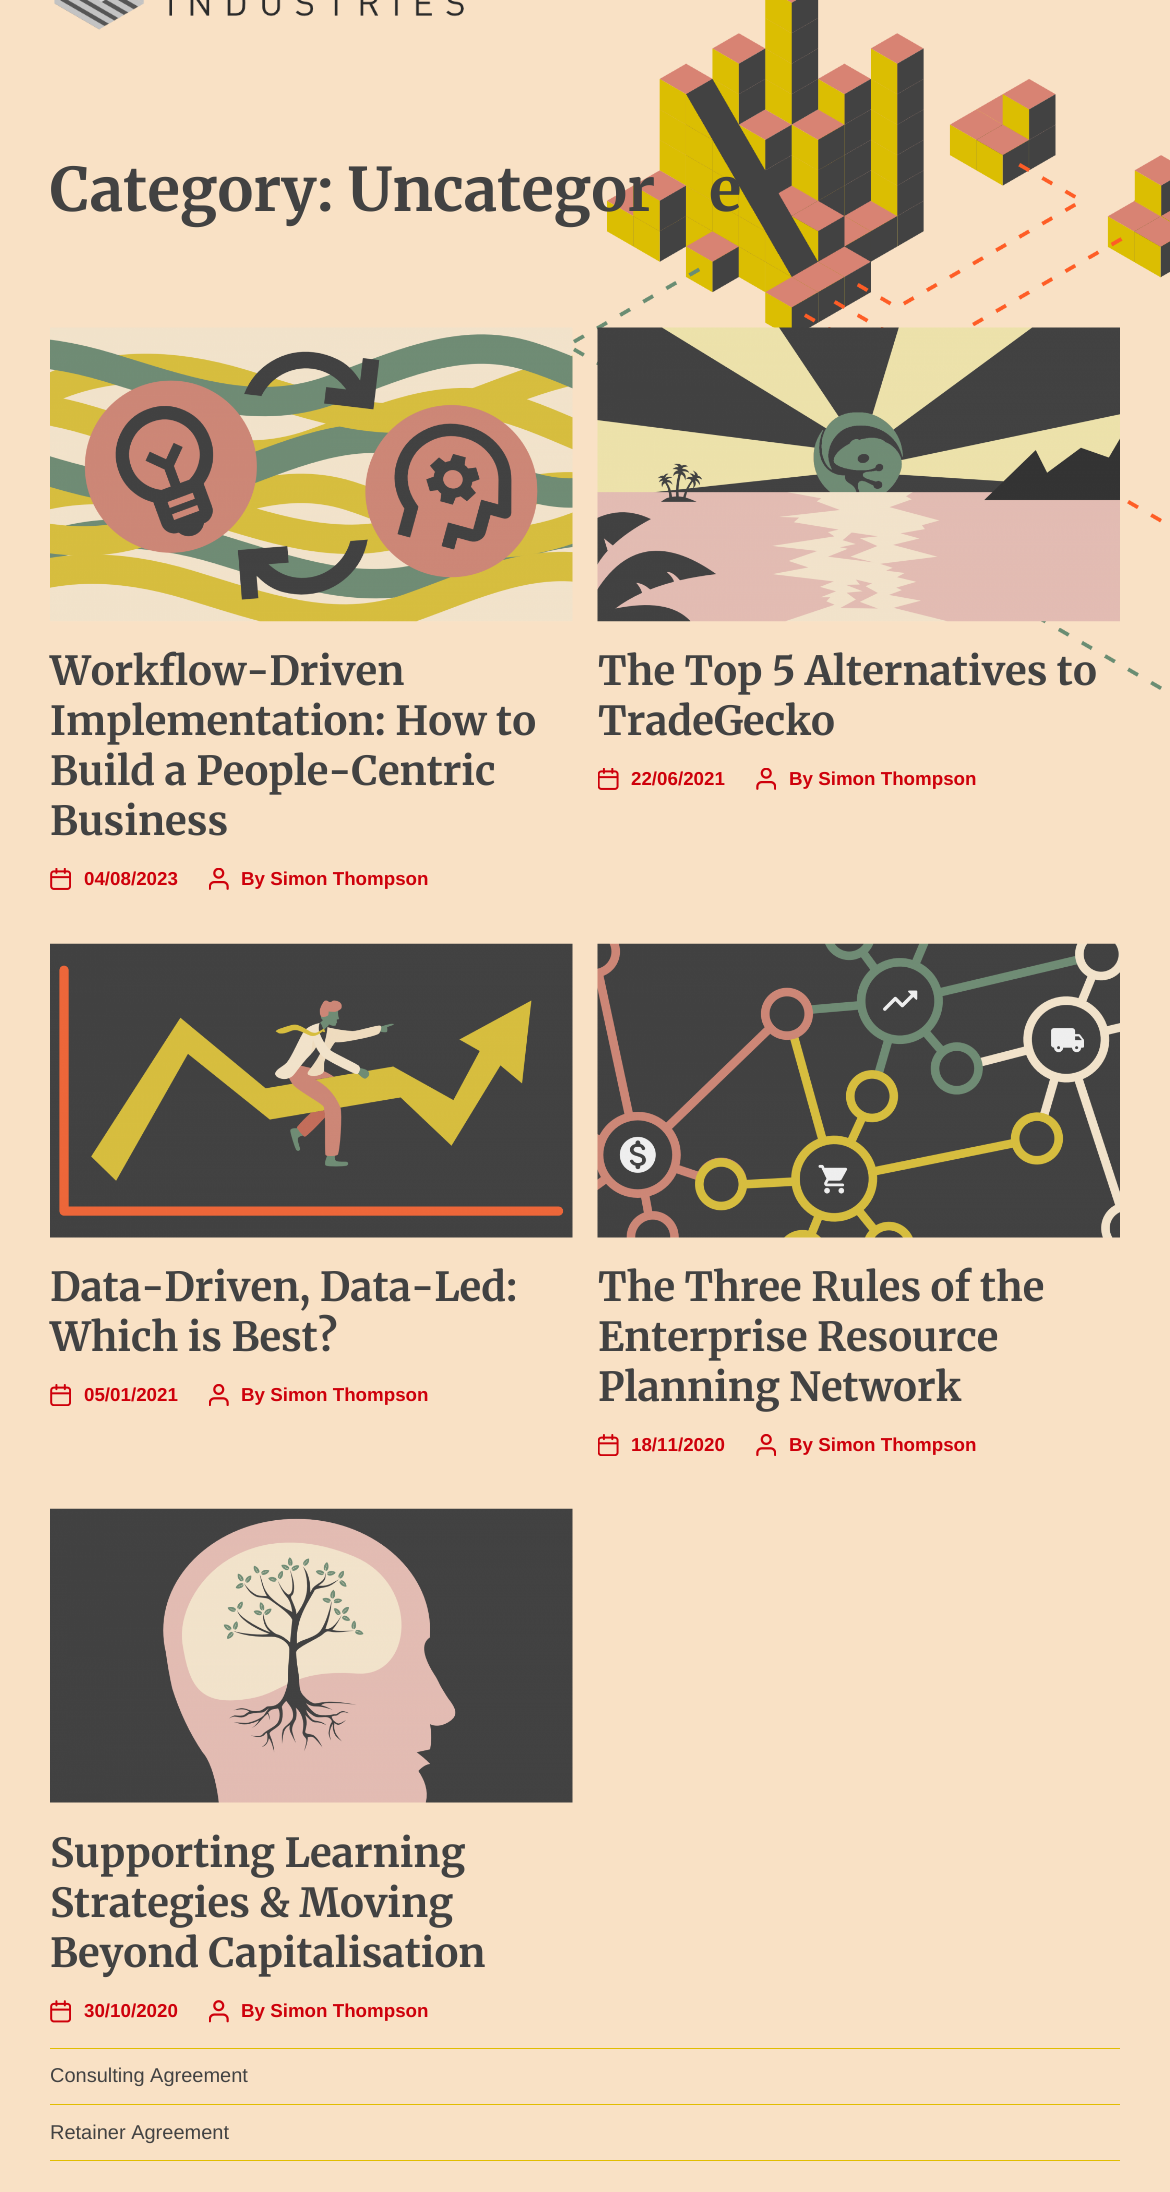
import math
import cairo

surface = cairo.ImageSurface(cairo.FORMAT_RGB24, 1170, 2192)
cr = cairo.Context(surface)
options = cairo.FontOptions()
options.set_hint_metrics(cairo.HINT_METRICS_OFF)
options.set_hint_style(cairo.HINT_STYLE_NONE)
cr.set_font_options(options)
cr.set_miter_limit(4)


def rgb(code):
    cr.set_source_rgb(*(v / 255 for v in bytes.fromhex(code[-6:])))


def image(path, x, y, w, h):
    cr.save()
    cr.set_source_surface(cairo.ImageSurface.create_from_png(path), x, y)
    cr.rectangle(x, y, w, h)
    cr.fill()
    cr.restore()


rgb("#f9e1c5")
cr.paint()
image("img/1.png", 573, 0, 597, 690)
image("img/2.png", 54, 0, 410, 30)
image("img/3.png", 50, 327, 523, 295)
image("img/4.png", 50, 868, 21, 22)
image("img/5.png", 209, 868, 20, 22)
image("img/6.png", 597, 327, 523, 295)
image("img/7.png", 598, 768, 21, 22)
image("img/8.png", 756, 768, 20, 22)
image("img/9.png", 50, 943, 523, 295)
image("img/10.png", 50, 1384, 21, 22)
image("img/11.png", 209, 1384, 20, 22)
image("img/12.png", 597, 943, 523, 295)
image("img/13.png", 598, 1434, 21, 22)
image("img/14.png", 756, 1434, 20, 22)
image("img/15.png", 50, 1508, 523, 295)
image("img/16.png", 50, 2000, 21, 23)
image("img/17.png", 209, 2000, 20, 23)
for x, y, w, h, color in [
    (50, 2048, 1070, 1, "#e1bd00"),
    (50, 2104, 1070, 1, "#e1bd00"),
    (50, 2160, 1070, 1, "#e1bd00"),
]:
    rgb(color)
    cr.rectangle(x, y, w, h)
    cr.fill()
cr.select_font_face("Merriweather", cairo.FONT_SLANT_NORMAL, cairo.FONT_WEIGHT_BOLD)
cr.set_font_size(60)
rgb("#424242")
cr.move_to(50, 211)
cr.show_text("Category: Uncategor")
cr.move_to(709, 211)
cr.show_text("e")
cr.set_font_size(40)
for x, y, s in [
    (50, 685, "Workflow-Driven"),
    (50, 735, "Implementation: How to"),
    (50, 785, "Build a People-Centric"),
    (50, 835, "Business"),
]:
    cr.move_to(x, y)
    cr.show_text(s)
cr.select_font_face("Liberation Sans", cairo.FONT_SLANT_NORMAL, cairo.FONT_WEIGHT_BOLD)
cr.set_font_size(18.75)
rgb("#ce000b")
cr.move_to(84, 885)
cr.show_text("04/08/2023")
cr.move_to(241, 885)
cr.show_text("By Simon Thompson")
cr.select_font_face("Merriweather", cairo.FONT_SLANT_NORMAL, cairo.FONT_WEIGHT_BOLD)
cr.set_font_size(40)
rgb("#424242")
cr.move_to(598, 685)
cr.show_text("The Top 5 Alternatives to")
cr.move_to(598, 735)
cr.show_text("TradeGecko")
cr.select_font_face("Liberation Sans", cairo.FONT_SLANT_NORMAL, cairo.FONT_WEIGHT_BOLD)
cr.set_font_size(18.75)
rgb("#ce000b")
cr.move_to(631, 785)
cr.show_text("22/06/2021")
cr.move_to(789, 785)
cr.show_text("By Simon Thompson")
cr.select_font_face("Merriweather", cairo.FONT_SLANT_NORMAL, cairo.FONT_WEIGHT_BOLD)
cr.set_font_size(40)
rgb("#424242")
cr.move_to(50, 1301)
cr.show_text("Data-Driven, Data-Led:")
cr.move_to(50, 1351)
cr.show_text("Which is Best?")
cr.select_font_face("Liberation Sans", cairo.FONT_SLANT_NORMAL, cairo.FONT_WEIGHT_BOLD)
cr.set_font_size(18.75)
rgb("#ce000b")
cr.move_to(84, 1401)
cr.show_text("05/01/2021")
cr.move_to(241, 1401)
cr.show_text("By Simon Thompson")
cr.select_font_face("Merriweather", cairo.FONT_SLANT_NORMAL, cairo.FONT_WEIGHT_BOLD)
cr.set_font_size(40)
rgb("#424242")
for x, y, s in [
    (598, 1301, "The Three Rules of the"),
    (598, 1351, "Enterprise Resource"),
    (598, 1401, "Planning Network"),
]:
    cr.move_to(x, y)
    cr.show_text(s)
cr.select_font_face("Liberation Sans", cairo.FONT_SLANT_NORMAL, cairo.FONT_WEIGHT_BOLD)
cr.set_font_size(18.75)
rgb("#ce000b")
cr.move_to(631, 1451)
cr.show_text("18/11/2020")
cr.move_to(789, 1451)
cr.show_text("By Simon Thompson")
cr.select_font_face("Merriweather", cairo.FONT_SLANT_NORMAL, cairo.FONT_WEIGHT_BOLD)
cr.set_font_size(40)
rgb("#424242")
for x, y, s in [
    (50, 1867, "Supporting Learning"),
    (50, 1917, "Strategies & Moving"),
    (50, 1967, "Beyond Capitalisation"),
]:
    cr.move_to(x, y)
    cr.show_text(s)
cr.select_font_face("Liberation Sans", cairo.FONT_SLANT_NORMAL, cairo.FONT_WEIGHT_BOLD)
cr.set_font_size(18.75)
rgb("#ce000b")
cr.move_to(84, 2017)
cr.show_text("30/10/2020")
cr.move_to(241, 2017)
cr.show_text("By Simon Thompson")
cr.select_font_face("Liberation Sans")
cr.set_font_size(20)
rgb("#424242")
cr.move_to(50, 2082)
cr.show_text("Consulting Agreement")
cr.move_to(50, 2139)
cr.show_text("Retainer Agreement")
surface.write_to_png("page.png")
